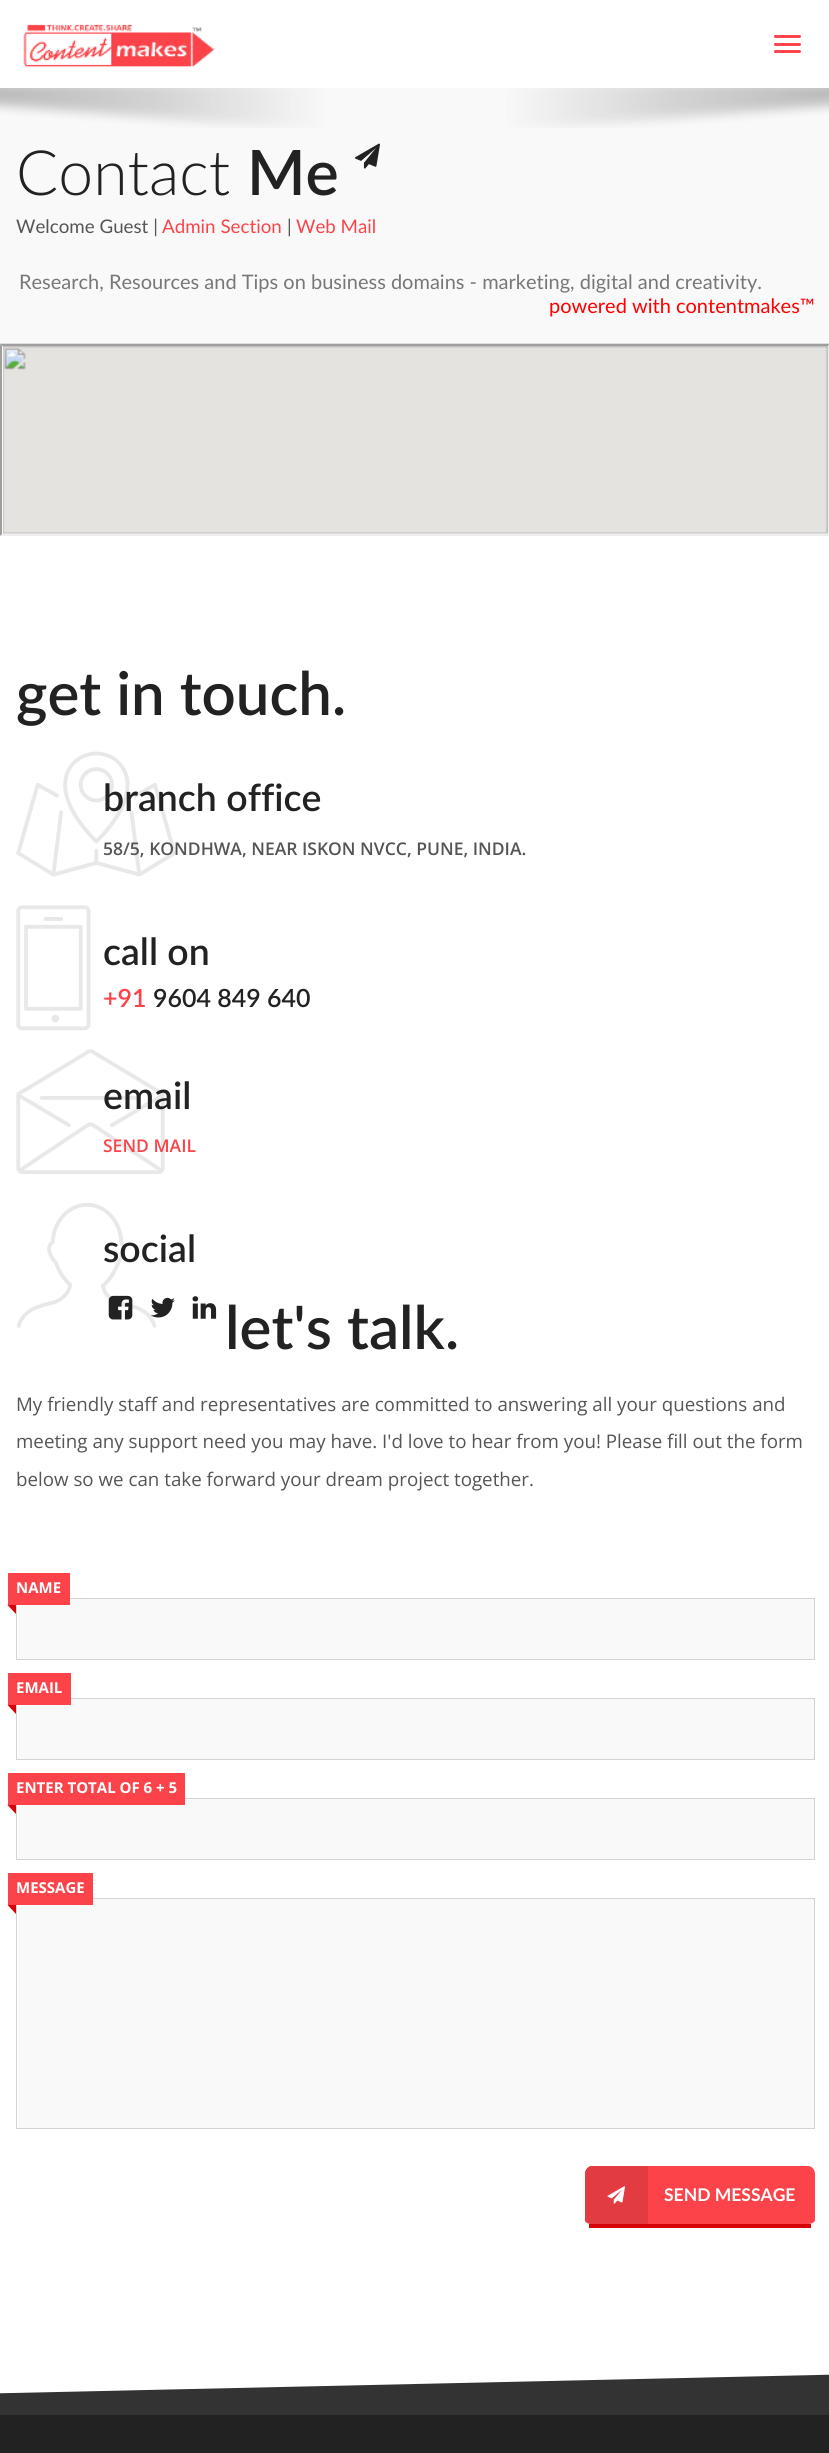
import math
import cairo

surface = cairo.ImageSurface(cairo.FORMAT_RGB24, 829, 2453)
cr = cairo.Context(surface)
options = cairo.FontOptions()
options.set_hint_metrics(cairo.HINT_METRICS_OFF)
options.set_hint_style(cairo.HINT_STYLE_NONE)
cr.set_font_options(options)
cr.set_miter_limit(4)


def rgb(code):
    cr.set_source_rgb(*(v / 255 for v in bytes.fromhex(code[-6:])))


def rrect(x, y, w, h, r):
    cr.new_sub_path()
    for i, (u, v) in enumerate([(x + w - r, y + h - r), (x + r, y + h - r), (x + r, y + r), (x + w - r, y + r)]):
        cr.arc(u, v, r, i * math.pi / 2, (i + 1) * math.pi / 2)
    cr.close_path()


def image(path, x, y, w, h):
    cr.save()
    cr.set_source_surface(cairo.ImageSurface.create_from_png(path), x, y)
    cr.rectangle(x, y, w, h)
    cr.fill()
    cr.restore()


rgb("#ffffff")
cr.paint()
image("img/1.png", 23, 24, 191, 44)
rgb("#fc4349")
rrect(774, 35, 27, 3, 1.5)
cr.fill()
rrect(774, 43, 27, 3, 1.5)
cr.fill()
rrect(774, 50, 27, 3, 1.5)
cr.fill()
rgb("#f9f9f9")
cr.rectangle(0, 88, 829, 255)
cr.fill()
rgb("#dddddd")
cr.rectangle(0, 343, 829, 1)
cr.fill()
image("img/2.png", 0, 88, 829, 40)
image("img/3.png", 355, 143, 25, 26)
rgb("#9f9f9f")
cr.new_path()
cr.move_to(0, 344)
cr.line_to(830, 344)
cr.line_to(828, 346)
cr.line_to(2, 346)
cr.close_path()
cr.fill()
rgb("#eeeeee")
cr.new_path()
cr.move_to(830, 344)
cr.line_to(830, 536)
cr.line_to(828, 534)
cr.line_to(828, 346)
cr.close_path()
cr.fill()
cr.new_path()
cr.move_to(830, 536)
cr.line_to(0, 536)
cr.line_to(2, 534)
cr.line_to(828, 534)
cr.close_path()
cr.fill()
rgb("#9f9f9f")
cr.new_path()
cr.move_to(0, 536)
cr.line_to(0, 344)
cr.line_to(2, 346)
cr.line_to(2, 534)
cr.close_path()
cr.fill()
image("img/4.png", 2, 346, 826, 188)
image("img/5.png", 16, 751, 161, 126)
image("img/6.png", 16, 905, 75, 126)
image("img/7.png", 16, 1049, 149, 125)
image("img/8.png", 17, 1203, 140, 125)
image("img/9.png", 108, 1295, 25, 25)
image("img/10.png", 150, 1297, 25, 21)
image("img/11.png", 192, 1296, 25, 23)
rgb("#f9f9f9")
cr.rectangle(18, 1599, 796, 60)
cr.fill()
cr.rectangle(16.5, 1598.5, 798, 61)
rgb("#d3d3d3")
cr.set_line_width(1)
cr.stroke()
rgb("#fc4349")
cr.rectangle(8, 1573, 62, 32)
cr.fill()
rgb("#d6030a")
cr.new_path()
cr.move_to(16, 1605)
cr.line_to(16, 1614)
cr.line_to(7.5, 1605)
cr.close_path()
cr.fill()
rgb("#f9f9f9")
cr.rectangle(18, 1699, 796, 60)
cr.fill()
cr.rectangle(16.5, 1698.5, 798, 61)
rgb("#d3d3d3")
cr.stroke()
rgb("#fc4349")
cr.rectangle(8, 1673, 63, 32)
cr.fill()
rgb("#d6030a")
cr.new_path()
cr.move_to(16, 1705)
cr.line_to(16, 1714)
cr.line_to(7.5, 1705)
cr.close_path()
cr.fill()
rgb("#f9f9f9")
cr.rectangle(18, 1799, 796, 60)
cr.fill()
cr.rectangle(16.5, 1798.5, 798, 61)
rgb("#d3d3d3")
cr.stroke()
rgb("#fc4349")
cr.rectangle(8, 1773, 177, 32)
cr.fill()
rgb("#d6030a")
cr.new_path()
cr.move_to(16, 1805)
cr.line_to(16, 1814)
cr.line_to(7.5, 1805)
cr.close_path()
cr.fill()
rgb("#f9f9f9")
cr.rectangle(18, 1899, 796, 229)
cr.fill()
cr.rectangle(16.5, 1898.5, 798, 230)
rgb("#d3d3d3")
cr.stroke()
rgb("#fc4349")
cr.rectangle(8, 1873, 85, 32)
cr.fill()
rgb("#d6030a")
cr.new_path()
cr.move_to(16, 1905)
cr.line_to(16, 1914)
cr.line_to(7.5, 1905)
cr.close_path()
cr.fill()
rgb("#fc4349")
cr.new_path()
cr.move_to(592, 2166)
cr.line_to(808, 2166)
cr.curve_to(812, 2166, 815, 2170, 815, 2174)
cr.line_to(815, 2220)
cr.curve_to(815, 2222, 812, 2224, 808, 2224)
cr.line_to(592, 2224)
cr.curve_to(588, 2224, 585, 2222, 585, 2220)
cr.line_to(585, 2174)
cr.curve_to(585, 2170, 588, 2166, 592, 2166)
cr.close_path()
cr.fill()
rgb("#d6030a")
cr.rectangle(589, 2224, 222, 4)
cr.fill()
rgb("#e23c42")
cr.new_path()
cr.move_to(592, 2166)
cr.curve_to(588, 2166, 585, 2170, 585, 2174)
cr.line_to(585, 2220)
cr.curve_to(585, 2222, 588, 2224, 592, 2224)
cr.line_to(648, 2224)
cr.line_to(648, 2166)
cr.close_path()
cr.fill()
image("img/12.png", 607, 2186, 18, 18)
cr.save()
cr.rectangle(0, 548, 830, 1867)
cr.clip()
rgb("#333333")
cr.new_path()
cr.move_to(-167, 2397)
cr.line_to(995, 2371)
cr.line_to(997, 2433)
cr.line_to(-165, 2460)
cr.close_path()
cr.fill()
cr.restore()
rgb("#222222")
cr.rectangle(0, 2415, 829, 38)
cr.fill()
cr.select_font_face("Lato Light")
cr.set_font_size(62.5)
cr.move_to(16, 195)
cr.show_text("Contact")
cr.select_font_face("Lato SemiBold")
cr.move_to(247, 195)
cr.show_text("Me")
cr.select_font_face("Lato")
cr.set_font_size(18.75)
rgb("#555555")
cr.move_to(16, 233)
cr.show_text("Welcome Guest |")
rgb("#fc4349")
cr.move_to(162, 233)
cr.show_text("Admin Section")
rgb("#555555")
cr.move_to(287, 233)
cr.show_text("|")
rgb("#fc4349")
cr.move_to(296, 233)
cr.show_text("Web Mail")
cr.set_font_size(20)
rgb("#777777")
cr.move_to(19, 289)
cr.show_text("Research, Resources and Tips on business domains - marketing, digital and creativity.")
rgb("#ff0000")
cr.move_to(549, 313)
cr.show_text("powered with contentmakes™")
cr.select_font_face("Lato SemiBold")
cr.set_font_size(60)
rgb("#222222")
cr.move_to(16, 715)
cr.show_text("get in touch.")
cr.set_font_size(37.5)
cr.move_to(103, 811)
cr.show_text("branch office")
cr.select_font_face("Open Sans SemiBold")
cr.set_font_size(17.5)
rgb("#555555")
cr.move_to(103, 855)
cr.show_text("58/5, KONDHWA, NEAR ISKON NVCC, PUNE, INDIA.")
cr.select_font_face("Lato SemiBold")
cr.set_font_size(37.5)
rgb("#222222")
cr.move_to(103, 965)
cr.show_text("call on")
cr.set_font_size(25)
rgb("#fc4349")
cr.move_to(103, 1007)
cr.show_text("+91")
rgb("#222222")
cr.move_to(153, 1007)
cr.show_text("9604 849 640")
cr.set_font_size(37.5)
cr.move_to(103, 1109)
cr.show_text("email")
cr.select_font_face("Open Sans SemiBold")
cr.set_font_size(17.5)
rgb("#fc4349")
cr.move_to(103, 1152)
cr.show_text("SEND MAIL")
cr.select_font_face("Lato SemiBold")
cr.set_font_size(37.5)
rgb("#222222")
cr.move_to(103, 1262)
cr.show_text("social")
cr.set_font_size(60)
cr.move_to(225, 1349)
cr.show_text("let's talk.")
cr.select_font_face("Open Sans")
cr.set_font_size(18.75)
rgb("#555555")
for x, y, s in [
    (16, 1411, "My friendly staff and representatives are committed to answering all your questions and"),
    (16, 1448, "meeting any support need you may have. I'd love to hear from you! Please fill out the form"),
    (16, 1486, "below so we can take forward your dream project together."),
]:
    cr.move_to(x, y)
    cr.show_text(s)
cr.select_font_face("Open Sans", cairo.FONT_SLANT_NORMAL, cairo.FONT_WEIGHT_BOLD)
cr.set_font_size(15)
rgb("#ffffff")
for x, y, s in [
    (16, 1593, "NAME"),
    (16, 1693, "EMAIL"),
    (16, 1793, "ENTER TOTAL OF 6 + 5"),
    (16, 1893, "MESSAGE"),
]:
    cr.move_to(x, y)
    cr.show_text(s)
cr.select_font_face("Lato", cairo.FONT_SLANT_NORMAL, cairo.FONT_WEIGHT_BOLD)
cr.set_font_size(17.5)
cr.move_to(664, 2201)
cr.show_text("SEND MESSAGE")
surface.write_to_png("page.png")
